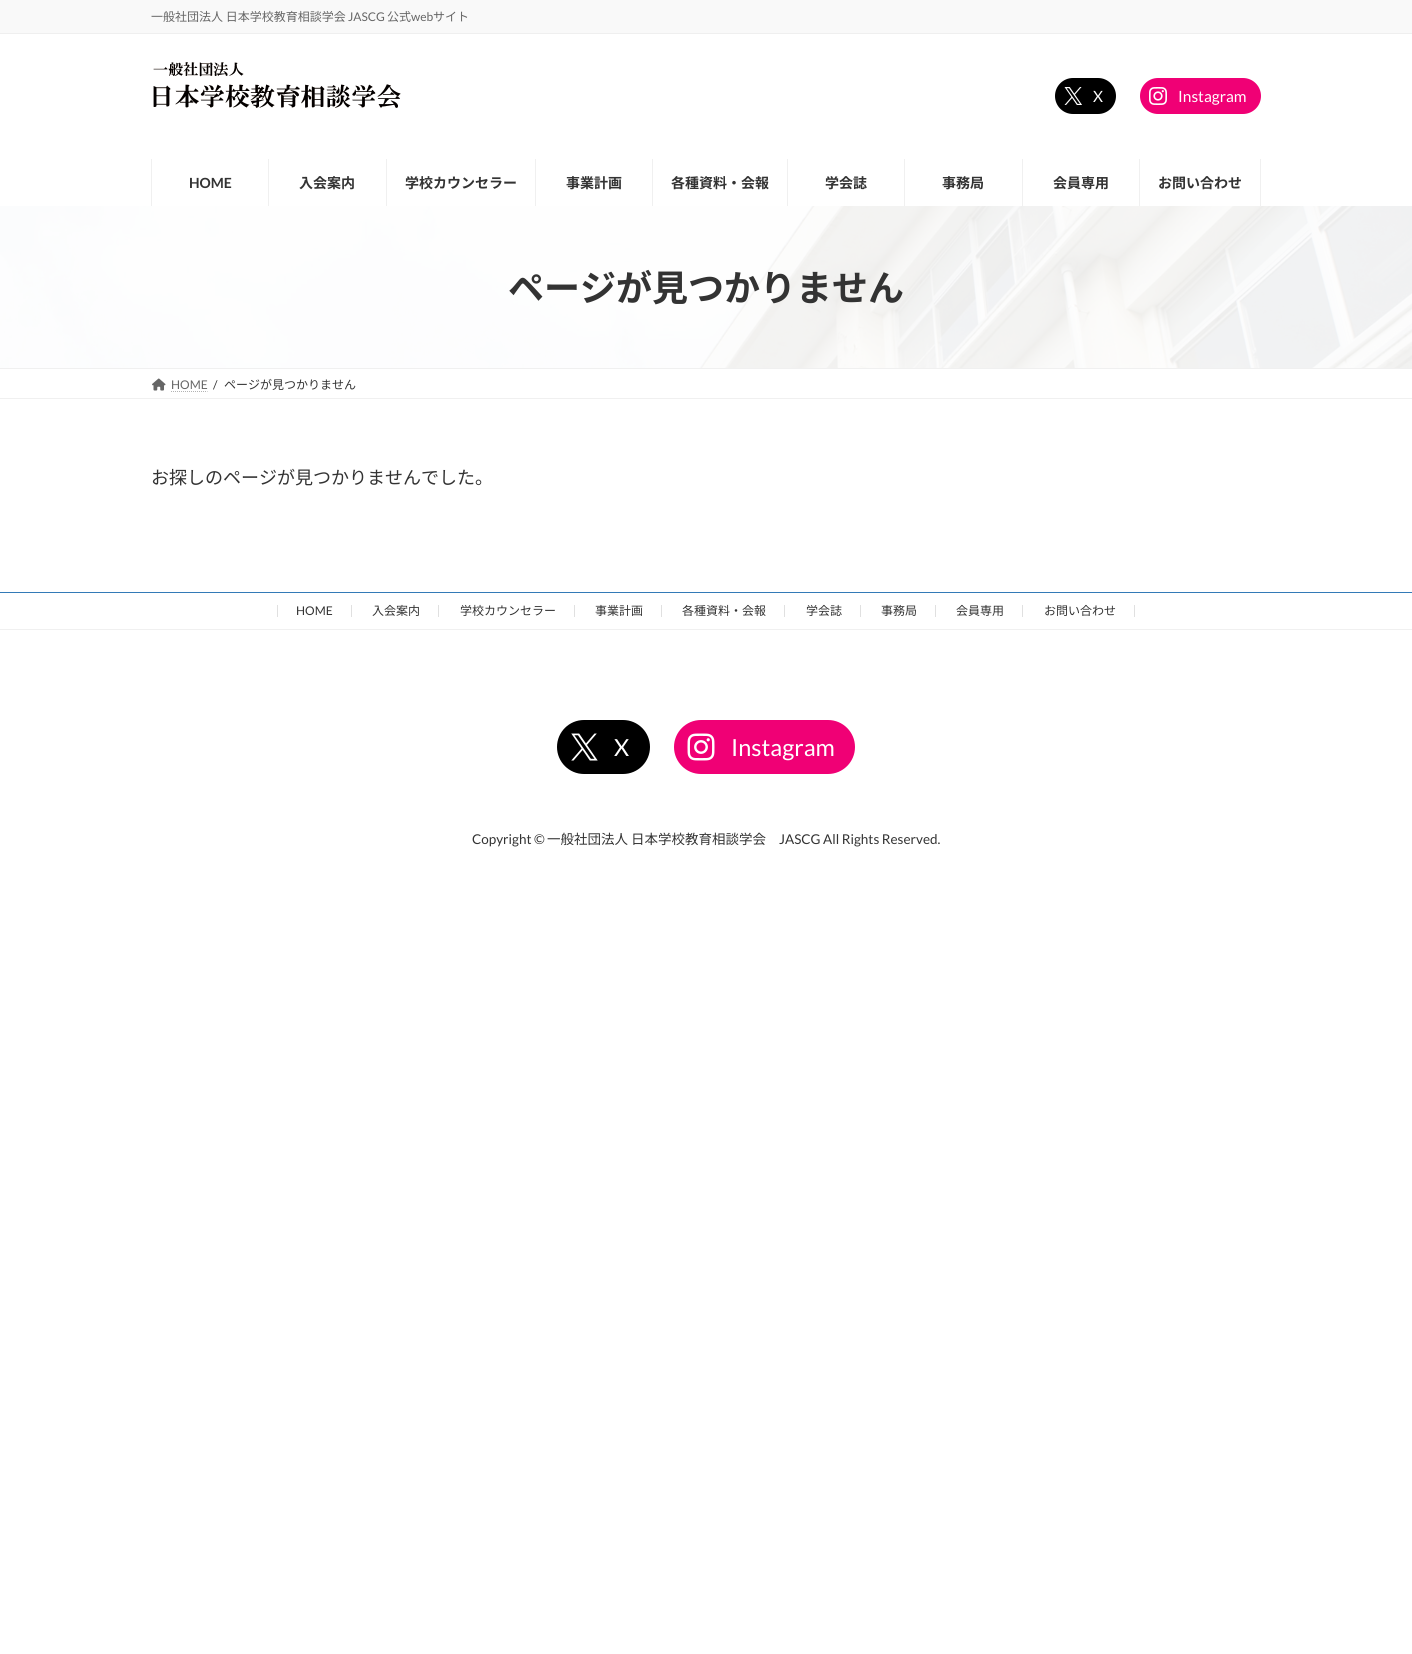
import math
import cairo

surface = cairo.ImageSurface(cairo.FORMAT_RGB24, 1412, 1654)
cr = cairo.Context(surface)
options = cairo.FontOptions()
options.set_hint_metrics(cairo.HINT_METRICS_OFF)
options.set_hint_style(cairo.HINT_STYLE_NONE)
cr.set_font_options(options)
cr.set_miter_limit(4)


def rgb(code):
    cr.set_source_rgb(*(v / 255 for v in bytes.fromhex(code[-6:])))


def rrect(x, y, w, h, r):
    cr.new_sub_path()
    for i, (u, v) in enumerate([(x + w - r, y + h - r), (x + r, y + h - r), (x + r, y + r), (x + w - r, y + r)]):
        cr.arc(u, v, r, i * math.pi / 2, (i + 1) * math.pi / 2)
    cr.close_path()


def image(path, x, y, w, h):
    cr.save()
    cr.set_source_surface(cairo.ImageSurface.create_from_png(path), x, y)
    cr.rectangle(x, y, w, h)
    cr.fill()
    cr.restore()


rgb("#ffffff")
cr.paint()
rgb("#f9f9f9")
cr.rectangle(0, 0, 1412, 33)
cr.fill()
rgb("#efefef")
cr.rectangle(0, 33, 1412, 1)
cr.fill()
image("img/1.png", 153, 62, 248, 46)
rgb("#000000")
rrect(1055, 78, 61, 36, 18)
cr.fill()
image("img/2.png", 1064, 87, 18, 18)
rgb("#f00075")
rrect(1140, 78, 121, 36, 18)
cr.fill()
image("img/3.png", 1149, 87, 18, 18)
for x, y, w, h, color in [
    (268, 159, 1, 47, "#f0f0f0"),
    (151, 159, 1, 47, "#f0f0f0"),
    (386, 159, 1, 47, "#f0f0f0"),
    (535, 159, 1, 47, "#f0f0f0"),
    (652, 159, 1, 47, "#f0f0f0"),
    (787, 159, 1, 47, "#f0f0f0"),
    (904, 159, 1, 47, "#f0f0f0"),
    (1022, 159, 1, 47, "#f0f0f0"),
    (1139, 159, 1, 47, "#f0f0f0"),
    (1260, 159, 1, 47, "#f0f0f0"),
]:
    rgb(color)
    cr.rectangle(x, y, w, h)
    cr.fill()
image("img/4.png", 0, 206, 1412, 162)
cr.rectangle(0, 368, 1412, 1)
cr.fill()
cr.rectangle(0, 398, 1412, 1)
cr.fill()
image("img/5.png", 152, 378, 14, 13)
cr.new_path()
cr.move_to(171, 391.5)
cr.line_to(207.5, 391.5)
rgb("#b3b3b3")
cr.set_line_width(1)
cr.set_dash([1, 1])
cr.stroke()
for x, y, w, h, color in [
    (0, 592, 1412, 1, "#337ab7"),
    (0, 629, 1412, 1, "#f0f0f0"),
    (351, 605, 1, 12, "#e0e0e0"),
    (277, 605, 1, 12, "#e0e0e0"),
    (438, 605, 1, 12, "#e0e0e0"),
    (574, 605, 1, 12, "#e0e0e0"),
    (661, 605, 1, 12, "#e0e0e0"),
    (784, 605, 1, 12, "#e0e0e0"),
    (860, 605, 1, 12, "#e0e0e0"),
    (935, 605, 1, 12, "#e0e0e0"),
    (1022, 605, 1, 12, "#e0e0e0"),
    (1134, 605, 1, 12, "#e0e0e0"),
]:
    rgb(color)
    cr.rectangle(x, y, w, h)
    cr.fill()
rgb("#000000")
rrect(557, 720, 93, 54, 27)
cr.fill()
image("img/6.png", 571, 733, 27, 28)
rgb("#f00075")
rrect(674, 720, 181, 54, 27)
cr.fill()
image("img/7.png", 687, 733, 28, 28)
cr.select_font_face("Noto Sans JP")
cr.set_font_size(12)
rgb("#666666")
cr.move_to(151, 21)
cr.show_text("一般社団法人 日本学校教育相談学会")
cr.select_font_face("Lato")
cr.move_to(348, 21)
cr.show_text("JASCG")
cr.select_font_face("Noto Sans JP")
cr.move_to(387, 21)
cr.show_text("公式")
cr.select_font_face("Lato")
cr.move_to(411, 21)
cr.show_text("web")
cr.select_font_face("Noto Sans JP")
cr.move_to(433, 21)
cr.show_text("サイト")
cr.select_font_face("Lato")
cr.set_font_size(15.5)
rgb("#ffffff")
cr.move_to(1093, 102)
cr.show_text("X")
cr.move_to(1178, 102)
cr.show_text("Instagram")
cr.select_font_face("Lato", cairo.FONT_SLANT_NORMAL, cairo.FONT_WEIGHT_BOLD)
cr.set_font_size(14)
rgb("#333333")
cr.move_to(189, 188)
cr.show_text("HOME")
cr.select_font_face("Noto Sans JP", cairo.FONT_SLANT_NORMAL, cairo.FONT_WEIGHT_BOLD)
for x, y, s in [
    (299, 188, "入会案内"),
    (405, 188, "学校カウンセラー"),
    (566, 188, "事業計画"),
    (671, 188, "各種資料・会報"),
    (825, 188, "学会誌"),
    (942, 188, "事務局"),
    (1053, 188, "会員専用"),
    (1158, 188, "お問い合わせ"),
]:
    cr.move_to(x, y)
    cr.show_text(s)
cr.set_font_size(36)
cr.move_to(508, 301)
cr.show_text("ページが見つかりません")
cr.select_font_face("Lato")
cr.set_font_size(12)
rgb("#666666")
cr.move_to(171, 389)
cr.show_text("HOME")
rgb("#333333")
cr.move_to(213, 389)
cr.show_text("/")
cr.select_font_face("Noto Sans JP")
cr.move_to(224, 389)
cr.show_text("ページが見つかりません")
cr.set_font_size(18)
cr.move_to(151, 484)
cr.show_text("お探しのページが見つかりませんでした。")
cr.select_font_face("Lato")
cr.set_font_size(12)
cr.move_to(296, 615)
cr.show_text("HOME")
cr.select_font_face("Noto Sans JP")
for x, y, s in [
    (372, 615, "入会案内"),
    (460, 615, "学校カウンセラー"),
    (595, 615, "事業計画"),
    (682, 615, "各種資料・会報"),
    (806, 615, "学会誌"),
    (881, 615, "事務局"),
    (956, 615, "会員専用"),
    (1044, 615, "お問い合わせ"),
]:
    cr.move_to(x, y)
    cr.show_text(s)
cr.select_font_face("Lato")
cr.set_font_size(23.5)
rgb("#ffffff")
cr.move_to(614, 756)
cr.show_text("X")
cr.move_to(731, 756)
cr.show_text("Instagram")
cr.set_font_size(13.5)
rgb("#333333")
cr.move_to(472, 844)
cr.show_text("Copyright ©")
cr.select_font_face("Noto Sans JP")
cr.move_to(547, 844)
cr.show_text("一般社団法人")
cr.move_to(631, 844)
cr.show_text("日本学校教育相談学会")
cr.select_font_face("Lato")
cr.move_to(779, 844)
cr.show_text("JASCG All Rights Reserved.")
surface.write_to_png("page.png")
